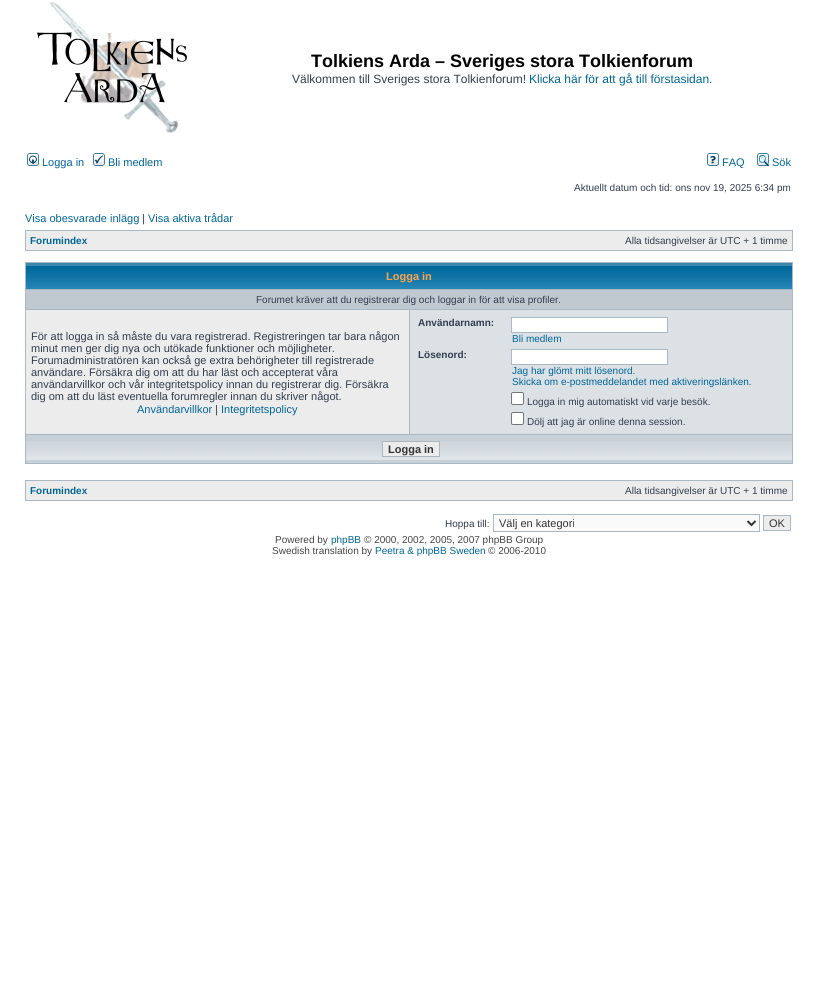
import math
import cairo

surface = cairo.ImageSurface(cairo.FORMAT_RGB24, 818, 997)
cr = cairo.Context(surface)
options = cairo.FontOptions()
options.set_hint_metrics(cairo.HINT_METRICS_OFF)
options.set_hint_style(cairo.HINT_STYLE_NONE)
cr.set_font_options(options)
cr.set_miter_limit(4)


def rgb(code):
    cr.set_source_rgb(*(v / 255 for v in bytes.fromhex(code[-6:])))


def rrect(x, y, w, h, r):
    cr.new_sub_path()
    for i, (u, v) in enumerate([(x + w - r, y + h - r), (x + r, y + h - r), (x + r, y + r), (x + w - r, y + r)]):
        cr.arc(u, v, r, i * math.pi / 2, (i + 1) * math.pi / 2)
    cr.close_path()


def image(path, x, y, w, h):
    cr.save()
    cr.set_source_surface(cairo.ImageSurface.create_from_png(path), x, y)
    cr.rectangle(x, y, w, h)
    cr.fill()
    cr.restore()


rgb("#ffffff")
cr.paint()
image("img/1.png", 37, 2, 150, 131)
image("img/2.png", 27, 153, 12, 13)
image("img/3.png", 93, 153, 12, 13)
image("img/4.png", 707, 153, 12, 13)
image("img/5.png", 757, 153, 12, 13)
for x, y, w, h, color in [
    (25, 230, 768, 21, "#a9b8c2"),
    (26, 231, 766, 19, "#ececec"),
    (25, 262, 768, 202, "#a9b8c2"),
]:
    rgb(color)
    cr.rectangle(x, y, w, h)
    cr.fill()
image("img/6.png", 26, 263, 766, 26)
for x, y, w, h, color in [
    (26, 290, 766, 19, "#c0c8d0"),
    (26, 310, 383, 124, "#ececec"),
    (410, 310, 382, 124, "#dce1e5"),
]:
    rgb(color)
    cr.rectangle(x, y, w, h)
    cr.fill()
rgb("#ffffff")
cr.rectangle(511.5, 317.5, 156, 15)
cr.fill_preserve()
rgb("#a9b8c2")
cr.set_line_width(1)
cr.stroke()
rgb("#ffffff")
cr.rectangle(511.5, 349.5, 156, 15)
cr.fill_preserve()
rgb("#a9b8c2")
cr.stroke()
rgb("#ffffff")
rrect(511.5, 392.5, 12, 12, 1.5)
cr.fill_preserve()
rgb("#767676")
cr.stroke()
rgb("#ffffff")
rrect(511.5, 412.5, 12, 12, 1.5)
cr.fill_preserve()
rgb("#767676")
cr.stroke()
rgb("#c7d0d7")
cr.rectangle(26, 435, 766, 28)
cr.fill()
image("img/7.png", 26, 441, 766, 19)
rgb("#ececec")
cr.rectangle(382.5, 441.5, 57, 15)
cr.fill_preserve()
rgb("#a9b8c2")
cr.stroke()
cr.rectangle(25, 480, 768, 21)
cr.fill()
rgb("#ececec")
cr.rectangle(26, 481, 766, 19)
cr.fill()
rgb("#fafafa")
cr.rectangle(493.5, 514.5, 266, 17)
cr.fill_preserve()
rgb("#a9b8c2")
cr.stroke()
cr.new_path()
cr.move_to(747.5, 521)
cr.line_to(751.5, 525)
cr.line_to(755.5, 521)
rgb("#333333")
cr.set_line_width(2)
cr.stroke()
rgb("#ececec")
cr.rectangle(763.5, 515.5, 27, 15)
cr.fill_preserve()
rgb("#a9b8c2")
cr.set_line_width(1)
cr.stroke()
cr.select_font_face("Liberation Sans", cairo.FONT_SLANT_NORMAL, cairo.FONT_WEIGHT_BOLD)
cr.set_font_size(18)
rgb("#000000")
cr.move_to(311, 67)
cr.show_text("Tolkiens Arda – Sveriges stora Tolkienforum")
cr.select_font_face("Liberation Sans")
cr.set_font_size(12)
rgb("#323d4f")
cr.move_to(292, 83)
cr.show_text("Välkommen till Sveriges stora Tolkienforum!")
rgb("#006597")
cr.move_to(529, 83)
cr.show_text("Klicka här för att gå till förstasidan.")
cr.set_font_size(11)
for x, y, s in [
    (42, 166, "Logga in"),
    (108, 166, "Bli medlem"),
    (722, 166, "FAQ"),
    (772, 166, "Sök"),
]:
    cr.move_to(x, y)
    cr.show_text(s)
cr.set_font_size(10)
rgb("#323d4f")
cr.move_to(574, 191)
cr.show_text("Aktuellt datum och tid: ons nov 19, 2025 6:34 pm")
cr.set_font_size(11)
rgb("#006597")
cr.move_to(25, 222)
cr.show_text("Visa obesvarade inlägg")
rgb("#323d4f")
cr.move_to(142, 222)
cr.show_text("|")
rgb("#006597")
cr.move_to(148, 222)
cr.show_text("Visa aktiva trådar")
cr.select_font_face("Liberation Sans", cairo.FONT_SLANT_NORMAL, cairo.FONT_WEIGHT_BOLD)
cr.set_font_size(10)
cr.move_to(30, 244)
cr.show_text("Forumindex")
cr.select_font_face("Liberation Sans")
rgb("#323d4f")
cr.move_to(625, 244)
cr.show_text("Alla tidsangivelser är UTC + 1 timme")
cr.select_font_face("Liberation Sans", cairo.FONT_SLANT_NORMAL, cairo.FONT_WEIGHT_BOLD)
cr.set_font_size(11)
rgb("#ffa34f")
cr.move_to(386, 280)
cr.show_text("Logga in")
cr.select_font_face("Liberation Sans")
cr.set_font_size(10)
rgb("#323d4f")
cr.move_to(256, 303)
cr.show_text("Forumet kräver att du registrerar dig och loggar in för att visa profiler.")
cr.set_font_size(11)
for x, y, s in [
    (31, 340, "För att logga in så måste du vara registrerad. Registreringen tar bara någon"),
    (31, 352, "minut men ger dig nya och utökade funktioner och möjligheter."),
    (31, 364, "Forumadministratören kan också ge extra behörigheter till registrerade"),
    (31, 376, "användare. Försäkra dig om att du har läst och accepterat våra"),
    (31, 388, "användarvillkor och vår integritetspolicy innan du registrerar dig. Försäkra"),
    (31, 400, "dig om att du läst eventuella forumregler innan du skriver något."),
]:
    cr.move_to(x, y)
    cr.show_text(s)
rgb("#006597")
cr.move_to(137, 413)
cr.show_text("Användarvillkor")
rgb("#323d4f")
cr.move_to(215, 413)
cr.show_text("|")
rgb("#006597")
cr.move_to(221, 413)
cr.show_text("Integritetspolicy")
cr.select_font_face("Liberation Sans", cairo.FONT_SLANT_NORMAL, cairo.FONT_WEIGHT_BOLD)
cr.set_font_size(10)
rgb("#323d4f")
cr.move_to(418, 326)
cr.show_text("Användarnamn:")
cr.select_font_face("Liberation Sans")
rgb("#006597")
cr.move_to(512, 342)
cr.show_text("Bli medlem")
cr.select_font_face("Liberation Sans", cairo.FONT_SLANT_NORMAL, cairo.FONT_WEIGHT_BOLD)
rgb("#323d4f")
cr.move_to(418, 358)
cr.show_text("Lösenord:")
cr.select_font_face("Liberation Sans")
rgb("#006597")
cr.move_to(512, 374)
cr.show_text("Jag har glömt mitt lösenord.")
cr.move_to(512, 385)
cr.show_text("Skicka om e-postmeddelandet med aktiveringslänken.")
rgb("#323d4f")
cr.move_to(527, 405)
cr.show_text("Logga in mig automatiskt vid varje besök.")
cr.move_to(527, 425)
cr.show_text("Dölj att jag är online denna session.")
cr.select_font_face("Liberation Sans", cairo.FONT_SLANT_NORMAL, cairo.FONT_WEIGHT_BOLD)
cr.set_font_size(11)
rgb("#333333")
cr.move_to(388, 453)
cr.show_text("Logga in")
cr.set_font_size(10)
rgb("#006597")
cr.move_to(30, 494)
cr.show_text("Forumindex")
cr.select_font_face("Liberation Sans")
rgb("#323d4f")
cr.move_to(625, 494)
cr.show_text("Alla tidsangivelser är UTC + 1 timme")
cr.move_to(445, 527)
cr.show_text("Hoppa till:")
cr.set_font_size(11)
rgb("#333333")
cr.move_to(499, 527)
cr.show_text("Välj en kategori")
cr.move_to(769, 527)
cr.show_text("OK")
cr.set_font_size(10)
rgb("#444444")
cr.move_to(275, 543)
cr.show_text("Powered by")
rgb("#006597")
cr.move_to(331, 543)
cr.show_text("phpBB")
rgb("#444444")
cr.move_to(364, 543)
cr.show_text("© 2000, 2002, 2005, 2007 phpBB Group")
cr.move_to(272, 554)
cr.show_text("Swedish translation by")
rgb("#006597")
cr.move_to(375, 554)
cr.show_text("Peetra & phpBB Sweden")
rgb("#444444")
cr.move_to(488, 554)
cr.show_text("© 2006-2010")
surface.write_to_png("page.png")
